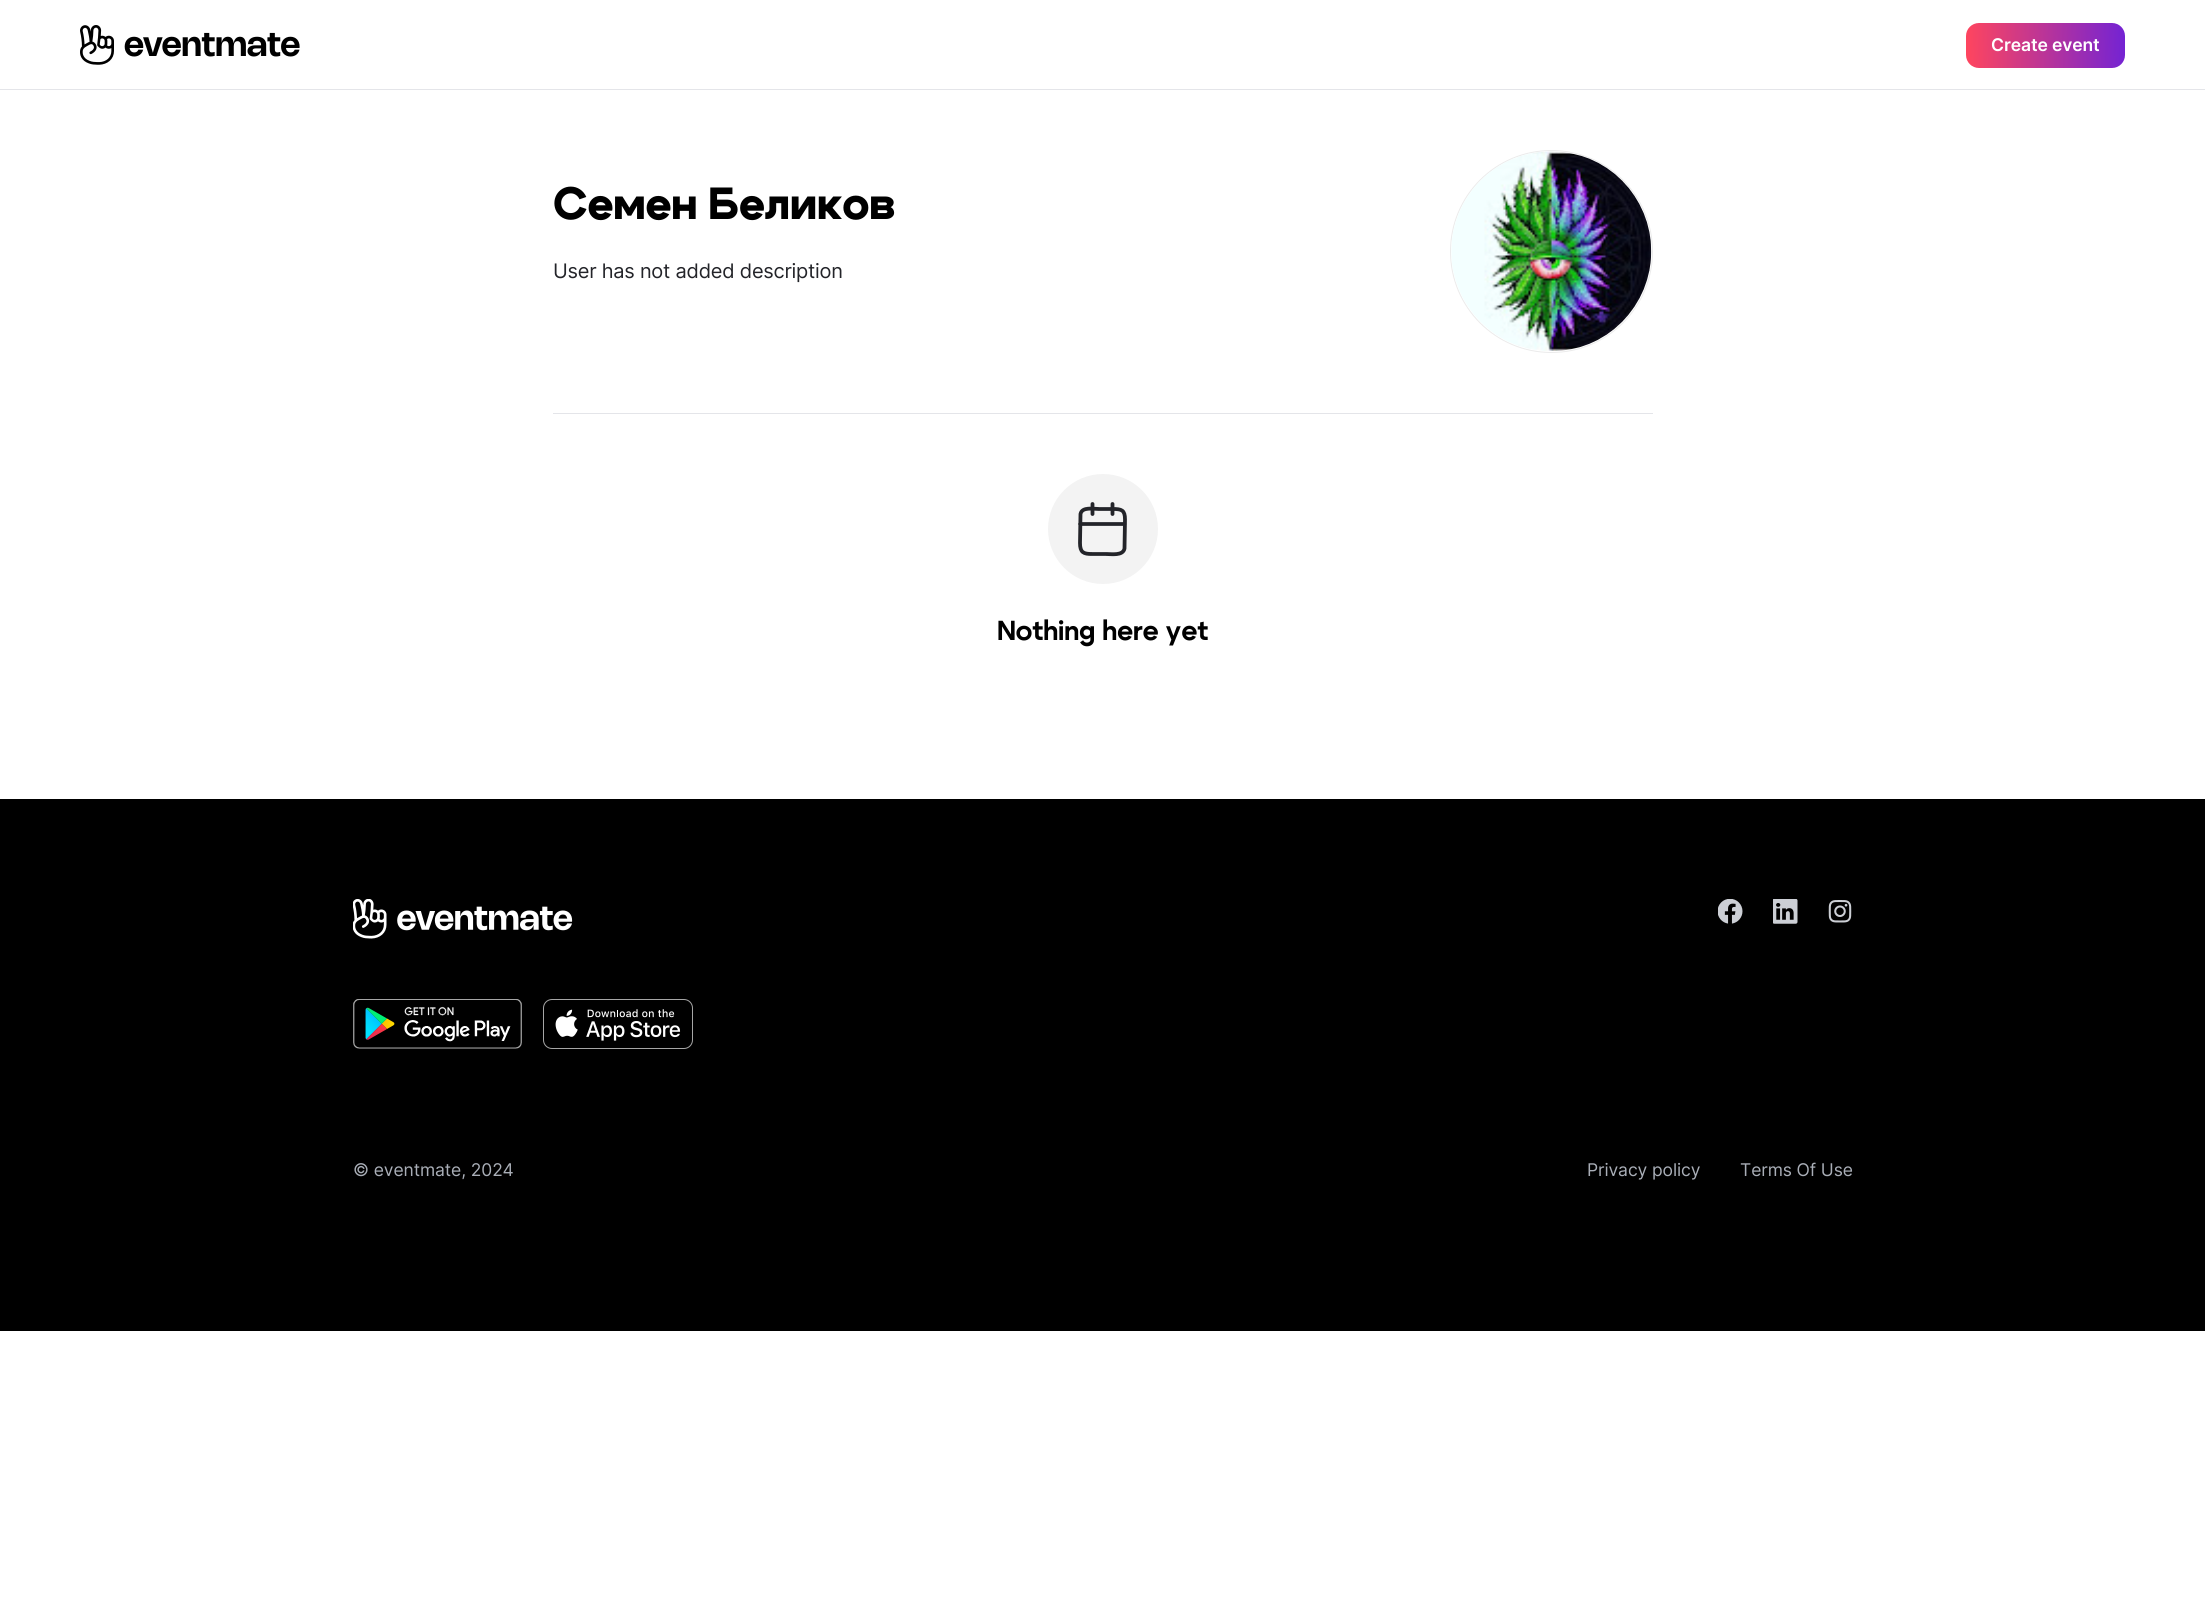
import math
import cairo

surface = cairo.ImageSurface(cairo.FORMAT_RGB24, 2205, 1607)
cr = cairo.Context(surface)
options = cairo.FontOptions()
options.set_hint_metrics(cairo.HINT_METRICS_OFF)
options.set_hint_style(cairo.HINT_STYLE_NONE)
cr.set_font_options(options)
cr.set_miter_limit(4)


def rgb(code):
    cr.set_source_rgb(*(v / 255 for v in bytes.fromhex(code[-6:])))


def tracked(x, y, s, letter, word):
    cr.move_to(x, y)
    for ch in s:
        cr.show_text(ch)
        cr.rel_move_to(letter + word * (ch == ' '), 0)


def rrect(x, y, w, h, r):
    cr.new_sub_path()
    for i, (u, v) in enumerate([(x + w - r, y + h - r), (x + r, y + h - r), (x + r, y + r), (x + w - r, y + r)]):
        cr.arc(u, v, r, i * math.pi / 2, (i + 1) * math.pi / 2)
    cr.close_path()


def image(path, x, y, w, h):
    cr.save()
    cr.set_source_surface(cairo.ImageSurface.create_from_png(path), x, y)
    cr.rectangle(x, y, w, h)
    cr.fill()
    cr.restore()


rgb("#ffffff")
cr.paint()
rgb("#e4e5e9")
cr.rectangle(0, 89, 2205, 1)
cr.fill()
image("img/1.png", 80, 25, 220, 40)
gradient = cairo.LinearGradient(2126, 42, 1966, 48)
gradient.add_color_stop_rgba(0, 0.451, 0.137, 0.831, 1)
gradient.add_color_stop_rgba(1, 1, 0.271, 0.369, 1)
cr.set_source(gradient)
rrect(1966, 23, 159, 45, 13)
cr.fill()
cr.arc(1551.5, 251.5, 101, 0, 2 * math.pi)
rgb("#ebebeb")
cr.set_line_width(1)
cr.stroke()
image("img/2.png", 1451, 151, 201, 200)
rgb("#e4e5e9")
cr.rectangle(553, 413, 1100, 1)
cr.fill()
rgb("#f3f3f3")
cr.arc(1103, 529, 55, 0, 2 * math.pi)
cr.fill()
cr.new_path()
cr.move_to(1125, 524)
cr.line_to(1080, 524)
cr.move_to(1112.5, 504)
cr.line_to(1112.5, 514)
cr.move_to(1092.5, 504)
cr.line_to(1092.5, 514)
cr.move_to(1092, 554)
cr.line_to(1106, 554)
cr.curve_to(1111.5, 554, 1123, 556, 1124.5, 548.5)
cr.line_to(1125, 519.5)
cr.curve_to(1125, 510, 1121.5, 509, 1113, 509)
cr.line_to(1099, 509)
cr.curve_to(1093.5, 509, 1082, 506.5, 1080.5, 514)
cr.line_to(1080, 543)
cr.curve_to(1080, 552.5, 1083.5, 554, 1092, 554)
cr.close_path()
rgb("#232429")
cr.set_line_width(3.8)
cr.set_line_cap(cairo.LINE_CAP_ROUND)
cr.set_line_join(cairo.LINE_JOIN_ROUND)
cr.stroke()
rgb("#000000")
cr.rectangle(0, 799, 2205, 532)
cr.fill()
image("img/3.png", 353, 899, 220, 40)
image("img/4.png", 353, 999, 169, 50)
image("img/5.png", 543, 999, 150, 50)
image("img/6.png", 1718, 899, 25, 25)
image("img/7.png", 1773, 899, 25, 25)
image("img/8.png", 1828, 900, 24, 23)
cr.select_font_face("Inter SemiBold")
cr.set_font_size(17.5)
rgb("#ffffff")
tracked(1991, 51, "Create event", -0.1, 0)
cr.select_font_face("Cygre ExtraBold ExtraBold")
cr.set_font_size(45)
rgb("#000000")
tracked(553, 219, "Семен Беликов", -1, 0)
cr.select_font_face("Inter")
cr.set_font_size(20)
rgb("#232429")
tracked(553, 278, "User has not added description", -0.25, 0)
cr.select_font_face("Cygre", cairo.FONT_SLANT_NORMAL, cairo.FONT_WEIGHT_BOLD)
cr.set_font_size(27.5)
rgb("#000000")
tracked(997, 640, "Nothing here yet", -0.5, 0)
cr.select_font_face("Inter")
cr.set_font_size(17.5)
rgb("#a9aeb7")
for x, y, s in [
    (353, 1176, "© eventmate, 2024"),
    (1587, 1176, "Privacy policy"),
    (1740, 1176, "Terms Of Use"),
]:
    tracked(x, y, s, -0.1, 0)
surface.write_to_png("page.png")
